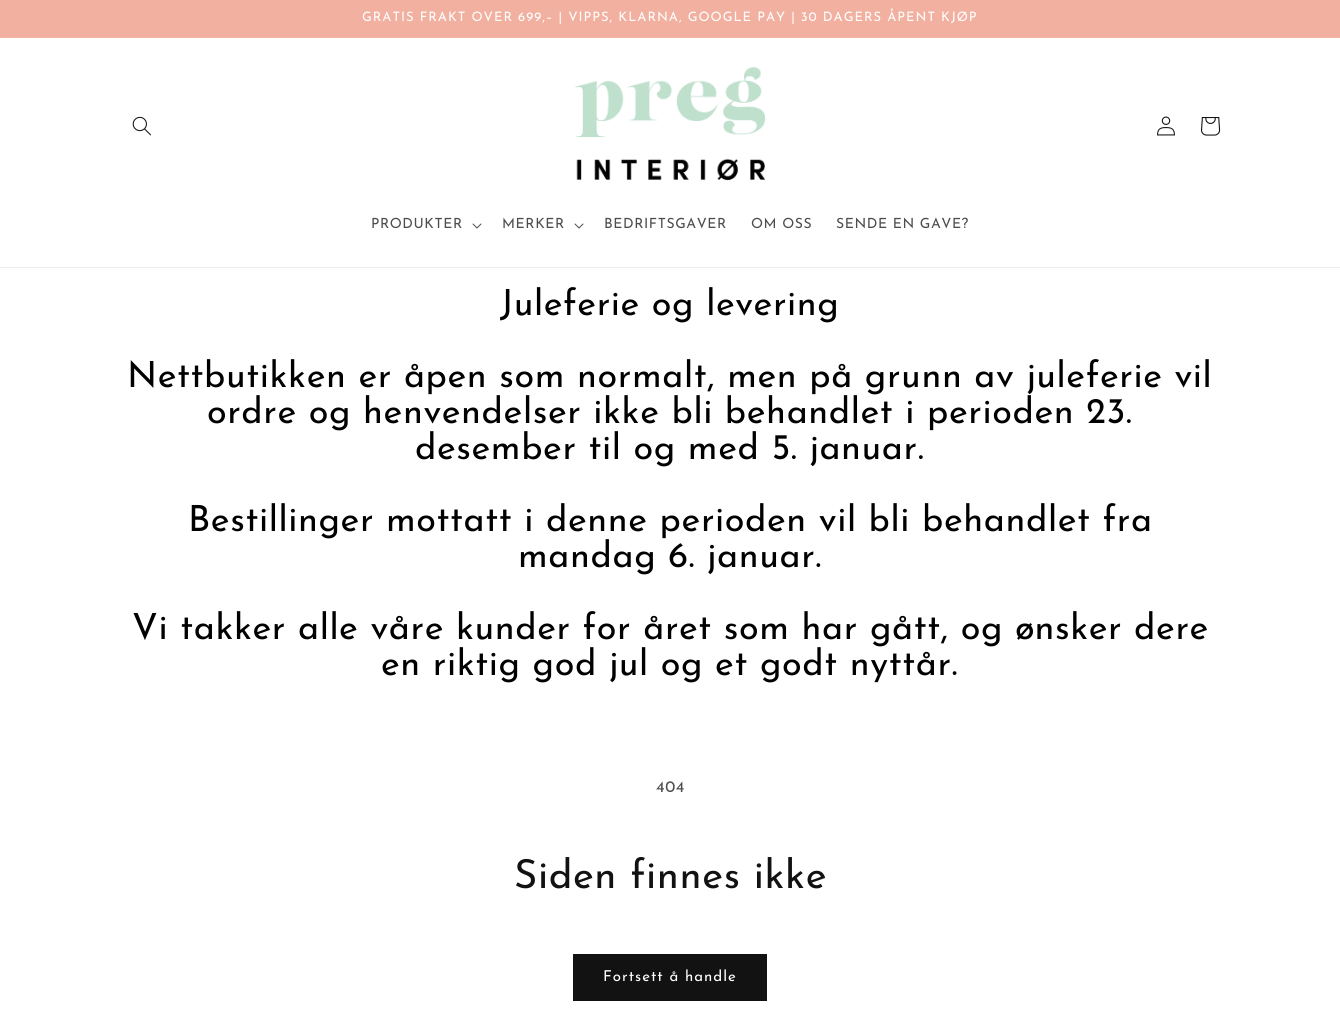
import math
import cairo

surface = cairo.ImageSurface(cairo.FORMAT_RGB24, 1340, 1014)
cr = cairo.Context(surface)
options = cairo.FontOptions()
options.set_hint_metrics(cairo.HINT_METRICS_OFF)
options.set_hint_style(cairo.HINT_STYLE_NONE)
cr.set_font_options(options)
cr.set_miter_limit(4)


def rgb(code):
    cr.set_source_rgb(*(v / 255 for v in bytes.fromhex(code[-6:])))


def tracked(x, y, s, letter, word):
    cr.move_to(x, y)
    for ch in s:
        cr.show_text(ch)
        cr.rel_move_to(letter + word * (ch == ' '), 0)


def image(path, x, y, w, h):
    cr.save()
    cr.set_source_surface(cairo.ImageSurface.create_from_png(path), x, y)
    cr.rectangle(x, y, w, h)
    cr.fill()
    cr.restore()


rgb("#ffffff")
cr.paint()
for x, y, w, h, color in [
    (0, 0, 1340, 37, "#f1b0a0"),
    (0, 37, 1340, 1, "#f2b6a8"),
    (0, 267, 1340, 1, "#ececec"),
]:
    rgb(color)
    cr.rectangle(x, y, w, h)
    cr.fill()
image("img/1.png", 132, 116, 19, 20)
image("img/2.png", 575, 66, 191, 115)
image("img/3.png", 1157, 116, 18, 20)
image("img/4.png", 1201, 117, 20, 19)
image("img/5.png", 472, 223, 10, 6)
image("img/5.png", 574, 223, 10, 6)
rgb("#121212")
cr.rectangle(573, 954, 194, 47)
cr.fill()
cr.select_font_face("Josefin Sans")
cr.set_font_size(13)
rgb("#ffffff")
tracked(362, 21, "GRATIS FRAKT OVER 699,– | VIPPS, KLARNA, GOOGLE PAY | 30 DAGERS ÅPENT KJØP", 1, 0)
cr.set_font_size(14)
rgb("#4d4d4d")
for x, y, s in [
    (371, 228, "PRODUKTER"),
    (502, 228, "MERKER"),
    (604, 228, "BEDRIFTSGAVER"),
    (751, 228, "OM OSS"),
    (836, 228, "SENDE EN GAVE?"),
]:
    tracked(x, y, s, 0.6, 0)
cr.set_font_size(36)
rgb("#000000")
for x, y, s in [
    (500, 315, "Juleferie og levering"),
    (127, 387, "Nettbutikken er åpen som normalt, men på grunn av juleferie vil"),
    (207, 423, "ordre og henvendelser ikke bli behandlet i perioden 23."),
    (415, 459, "desember til og med 5. januar."),
    (188, 531, "Bestillinger mottatt i denne perioden vil bli behandlet fra"),
    (518, 567, "mandag 6. januar."),
    (132, 639, "Vi takker alle våre kunder for året som har gått, og ønsker dere"),
    (381, 675, "en riktig god jul og et godt nyttår."),
]:
    tracked(x, y, s, 0.6, 0)
cr.set_font_size(16)
rgb("#4d4d4d")
tracked(656, 792, "404", 0.6, 0)
cr.set_font_size(40)
rgb("#121212")
tracked(514, 888, "Siden finnes ikke", 0.6, 0)
cr.set_font_size(15)
rgb("#ffffff")
tracked(603, 981, "Fortsett å handle", 1, 0)
surface.write_to_png("page.png")
